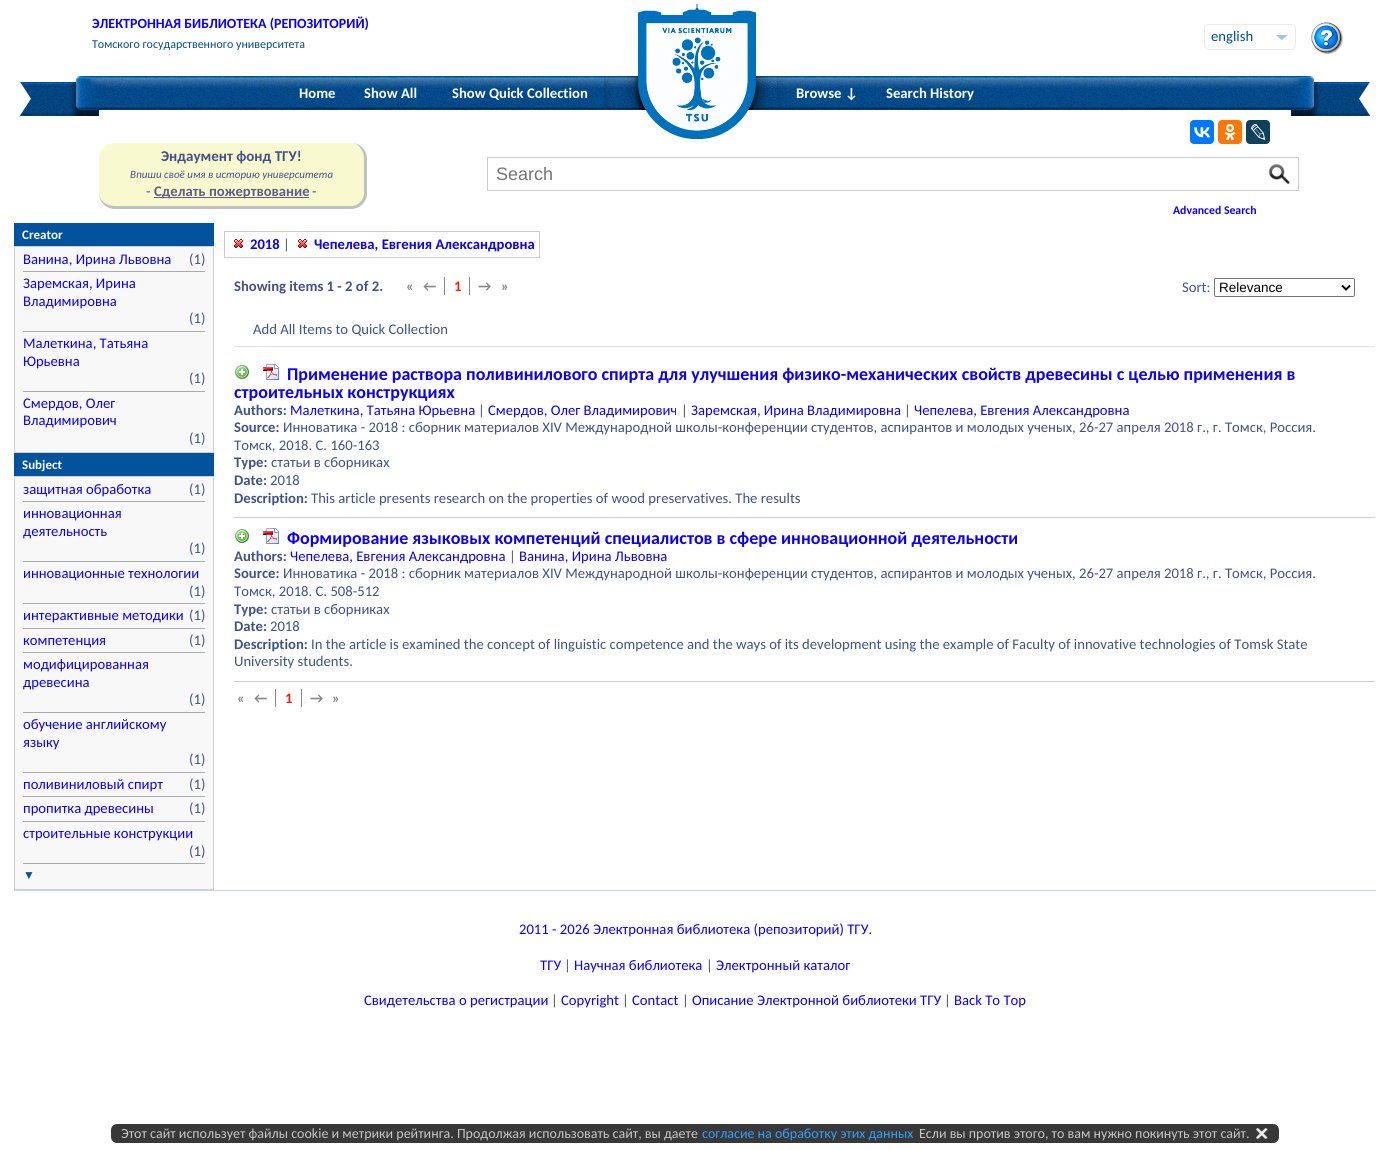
import math
import cairo

surface = cairo.ImageSurface(cairo.FORMAT_RGB24, 1390, 1150)
cr = cairo.Context(surface)
options = cairo.FontOptions()
options.set_hint_metrics(cairo.HINT_METRICS_OFF)
options.set_hint_style(cairo.HINT_STYLE_NONE)
cr.set_font_options(options)
cr.set_miter_limit(4)


def rgb(code):
    cr.set_source_rgb(*(v / 255 for v in bytes.fromhex(code[-6:])))


def rrect(x, y, w, h, r):
    cr.new_sub_path()
    for i, (u, v) in enumerate([(x + w - r, y + h - r), (x + r, y + h - r), (x + r, y + r), (x + w - r, y + r)]):
        cr.arc(u, v, r, i * math.pi / 2, (i + 1) * math.pi / 2)
    cr.close_path()


def image(path, x, y, w, h):
    cr.save()
    cr.set_source_surface(cairo.ImageSurface.create_from_png(path), x, y)
    cr.rectangle(x, y, w, h)
    cr.fill()
    cr.restore()


rgb("#ffffff")
cr.paint()
rrect(1204.5, 24.5, 91, 25, 4.5)
rgb("#ebe9e9")
cr.set_line_width(1)
cr.stroke()
image("img/1.png", 1276, 35, 12, 5)
image("img/2.png", 1311, 22, 32, 32)
image("img/3.png", 20, 76, 95, 40)
image("img/4.png", 115, 76, 1160, 34)
image("img/5.png", 604, 4, 183, 135)
image("img/6.png", 1275, 76, 95, 40)
rgb("#f9f9d0")
cr.new_path()
cr.move_to(115, 143)
cr.line_to(351, 143)
cr.curve_to(358, 143, 364, 150, 364, 159)
cr.line_to(364, 193)
cr.curve_to(364, 200, 358, 206, 351, 206)
cr.line_to(115, 206)
cr.curve_to(106, 206, 99, 200, 99, 193)
cr.line_to(99, 159)
cr.curve_to(99, 150, 106, 143, 115, 143)
cr.close_path()
cr.fill()
rgb("#c0c0c0")
cr.set_fill_rule(cairo.FILL_RULE_EVEN_ODD)
cr.new_path()
cr.move_to(115, 143)
cr.line_to(351, 143)
cr.curve_to(360, 143, 367, 150, 367, 159)
cr.line_to(367, 193)
cr.curve_to(367, 202, 360, 209, 351, 209)
cr.line_to(115, 209)
cr.curve_to(106, 209, 99, 202, 99, 193)
cr.line_to(99, 159)
cr.curve_to(99, 150, 106, 143, 115, 143)
cr.close_path()
cr.move_to(115, 143)
cr.line_to(351, 143)
cr.curve_to(358, 143, 364, 150, 364, 159)
cr.line_to(364, 193)
cr.curve_to(364, 200, 358, 206, 351, 206)
cr.line_to(115, 206)
cr.curve_to(106, 206, 99, 200, 99, 193)
cr.line_to(99, 159)
cr.curve_to(99, 150, 106, 143, 115, 143)
cr.close_path()
cr.fill()
rgb("#5d5d86")
cr.rectangle(154, 197, 155, 1)
cr.fill()
cr.rectangle(487.5, 157.5, 811, 33)
rgb("#cccccc")
cr.stroke()
image("img/7.png", 1268, 164, 22, 20)
for x, y, w, h, color in [
    (14, 452, 200, 1, "#d0d0d0"),
    (14, 223, 200, 23, "#02529d"),
    (14, 246, 200, 1, "#d0d0d0"),
    (15, 247, 198, 205, "#f8f8f8"),
    (213, 247, 1, 205, "#d0d0d0"),
    (14, 247, 1, 205, "#d0d0d0"),
    (23, 271, 182, 1, "#aaaaaa"),
    (23, 331, 182, 1, "#aaaaaa"),
    (23, 391, 182, 1, "#aaaaaa"),
    (14, 889, 200, 1, "#d0d0d0"),
    (14, 453, 200, 23, "#02529d"),
    (14, 476, 200, 1, "#d0d0d0"),
    (15, 477, 198, 412, "#f8f8f8"),
    (213, 477, 1, 412, "#d0d0d0"),
    (14, 477, 1, 412, "#d0d0d0"),
    (23, 501, 182, 1, "#aaaaaa"),
    (23, 561, 182, 1, "#aaaaaa"),
    (23, 603, 182, 1, "#aaaaaa"),
    (23, 628, 182, 1, "#aaaaaa"),
    (23, 652, 182, 1, "#aaaaaa"),
    (23, 712, 182, 1, "#aaaaaa"),
    (23, 772, 182, 1, "#aaaaaa"),
    (23, 796, 182, 1, "#aaaaaa"),
    (23, 821, 182, 1, "#aaaaaa"),
    (23, 863, 182, 1, "#aaaaaa"),
]:
    rgb(color)
    cr.rectangle(x, y, w, h)
    cr.fill()
cr.rectangle(224.5, 231.5, 315, 26)
rgb("#cccccc")
cr.stroke()
image("img/8.png", 234, 239, 9, 9)
image("img/8.png", 298, 239, 9, 9)
rgb("#0077ff")
rrect(1190, 120, 24, 24, 4)
cr.fill()
image("img/9.png", 1194, 127, 16, 11)
rgb("#ff7700")
rrect(1218, 120, 24, 24, 4)
cr.fill()
image("img/10.png", 1224, 124, 12, 16)
rgb("#0d425a")
rrect(1246, 120, 24, 24, 4)
cr.fill()
image("img/11.png", 1251, 124, 15, 16)
rgb("#888888")
cr.rectangle(444, 277, 1, 18)
cr.fill()
cr.rectangle(469, 277, 1, 18)
cr.fill()
rrect(1214.5, 278.5, 140, 18, 1.5)
rgb("#767676")
cr.stroke()
cr.new_path()
cr.move_to(1342, 285.5)
cr.line_to(1346, 289.5)
cr.line_to(1350, 285.5)
rgb("#000000")
cr.set_line_width(2)
cr.stroke()
rgb("#e0e0e0")
cr.rectangle(234, 346, 1141, 1)
cr.fill()
rgb("#cccccc")
cr.rectangle(234, 517, 1141, 1)
cr.fill()
image("img/12.png", 235, 365, 14, 14)
image("img/13.png", 263, 364, 16, 16)
cr.rectangle(234, 681, 1141, 1)
cr.fill()
image("img/12.png", 235, 529, 14, 14)
image("img/13.png", 263, 528, 16, 16)
for x, y, w, h, color in [
    (275, 689, 1, 18, "#888888"),
    (301, 689, 1, 18, "#888888"),
    (14, 890, 1362, 1, "#c5d5f6"),
]:
    rgb(color)
    cr.rectangle(x, y, w, h)
    cr.fill()
rgb("#383838")
rrect(111, 1124, 1168, 19, 6)
cr.fill()
image("img/14.png", 1256, 1128, 12, 11)
cr.select_font_face("Carlito", cairo.FONT_SLANT_NORMAL, cairo.FONT_WEIGHT_BOLD)
cr.set_font_size(14)
rgb("#0c00ff")
cr.move_to(92, 28)
cr.show_text("ЭЛЕКТРОННАЯ БИБЛИОТЕКА (РЕПОЗИТОРИЙ)")
cr.select_font_face("Carlito")
cr.set_font_size(12)
rgb("#004e8b")
cr.move_to(92, 48)
cr.show_text("Томского государственного университета")
cr.set_font_size(14.67)
cr.move_to(1211, 41)
cr.show_text("english")
cr.select_font_face("Carlito", cairo.FONT_SLANT_NORMAL, cairo.FONT_WEIGHT_BOLD)
rgb("#ffffff")
for x, y, s in [
    (299, 98, "Home"),
    (364, 98, "Show All"),
    (452, 98, "Show Quick Collection"),
    (796, 98, "Browse ↓"),
    (886, 98, "Search History"),
]:
    cr.move_to(x, y)
    cr.show_text(s)
cr.set_font_size(15)
rgb("#405286")
cr.move_to(161, 161)
cr.show_text("Эндаумент фонд ТГУ!")
cr.select_font_face("Carlito", cairo.FONT_SLANT_ITALIC)
cr.set_font_size(11)
cr.move_to(130, 178)
cr.show_text("Впиши своё имя в историю университета")
cr.select_font_face("Carlito")
cr.set_font_size(14.67)
cr.move_to(146, 196)
cr.show_text("-")
cr.select_font_face("Carlito", cairo.FONT_SLANT_NORMAL, cairo.FONT_WEIGHT_BOLD)
rgb("#5d5d86")
cr.move_to(154, 196)
cr.show_text("Сделать пожертвование")
cr.select_font_face("Carlito")
rgb("#405286")
cr.move_to(312, 196)
cr.show_text("-")
cr.select_font_face("Liberation Sans")
cr.set_font_size(18)
rgb("#757575")
cr.move_to(496, 180)
cr.show_text("Search")
cr.select_font_face("Carlito", cairo.FONT_SLANT_NORMAL, cairo.FONT_WEIGHT_BOLD)
cr.set_font_size(11.75)
rgb("#0c00ff")
cr.move_to(1173, 214)
cr.show_text("Advanced Search")
cr.set_font_size(13)
rgb("#ffffff")
cr.move_to(22, 239)
cr.show_text("Creator")
cr.select_font_face("Carlito")
cr.set_font_size(14.67)
rgb("#0c00ff")
cr.move_to(23, 264)
cr.show_text("Ванина, Ирина Львовна")
rgb("#405286")
cr.move_to(189, 264)
cr.show_text("(1)")
rgb("#0c00ff")
cr.move_to(23, 288)
cr.show_text("Заремская, Ирина")
cr.move_to(23, 306)
cr.show_text("Владимировна")
rgb("#405286")
cr.move_to(189, 323)
cr.show_text("(1)")
rgb("#0c00ff")
cr.move_to(23, 348)
cr.show_text("Малеткина, Татьяна")
cr.move_to(23, 366)
cr.show_text("Юрьевна")
rgb("#405286")
cr.move_to(189, 383)
cr.show_text("(1)")
rgb("#0c00ff")
cr.move_to(23, 408)
cr.show_text("Смердов, Олег")
cr.move_to(23, 425)
cr.show_text("Владимирович")
rgb("#405286")
cr.move_to(189, 443)
cr.show_text("(1)")
cr.select_font_face("Carlito", cairo.FONT_SLANT_NORMAL, cairo.FONT_WEIGHT_BOLD)
cr.set_font_size(13)
rgb("#ffffff")
cr.move_to(22, 469)
cr.show_text("Subject")
cr.select_font_face("Carlito")
cr.set_font_size(14.67)
rgb("#0c00ff")
cr.move_to(23, 494)
cr.show_text("защитная обработка")
rgb("#405286")
cr.move_to(189, 494)
cr.show_text("(1)")
rgb("#0c00ff")
cr.move_to(23, 518)
cr.show_text("инновационная")
cr.move_to(23, 536)
cr.show_text("деятельность")
rgb("#405286")
cr.move_to(189, 553)
cr.show_text("(1)")
rgb("#0c00ff")
cr.move_to(23, 578)
cr.show_text("инновационные технологии")
rgb("#405286")
cr.move_to(189, 596)
cr.show_text("(1)")
rgb("#0c00ff")
cr.move_to(23, 620)
cr.show_text("интерактивные методики")
rgb("#405286")
cr.move_to(189, 620)
cr.show_text("(1)")
rgb("#0c00ff")
cr.move_to(23, 645)
cr.show_text("компетенция")
rgb("#405286")
cr.move_to(189, 645)
cr.show_text("(1)")
rgb("#0c00ff")
cr.move_to(23, 669)
cr.show_text("модифицированная")
cr.move_to(23, 687)
cr.show_text("древесина")
rgb("#405286")
cr.move_to(189, 704)
cr.show_text("(1)")
rgb("#0c00ff")
cr.move_to(23, 729)
cr.show_text("обучение английскому")
cr.move_to(23, 747)
cr.show_text("языку")
rgb("#405286")
cr.move_to(189, 764)
cr.show_text("(1)")
rgb("#0c00ff")
cr.move_to(23, 789)
cr.show_text("поливиниловый спирт")
rgb("#405286")
cr.move_to(189, 789)
cr.show_text("(1)")
rgb("#0c00ff")
cr.move_to(23, 813)
cr.show_text("пропитка древесины")
rgb("#405286")
cr.move_to(189, 813)
cr.show_text("(1)")
rgb("#0c00ff")
cr.move_to(23, 838)
cr.show_text("строительные конструкции")
rgb("#405286")
cr.move_to(189, 856)
cr.show_text("(1)")
cr.select_font_face("Liberation Sans", cairo.FONT_SLANT_NORMAL, cairo.FONT_WEIGHT_BOLD)
cr.set_font_size(12)
rgb("#02529d")
cr.move_to(23, 879)
cr.show_text("▼")
cr.select_font_face("Carlito", cairo.FONT_SLANT_NORMAL, cairo.FONT_WEIGHT_BOLD)
cr.set_font_size(14.67)
rgb("#0c00ff")
cr.move_to(250, 249)
cr.show_text("2018")
cr.select_font_face("Carlito")
rgb("#405286")
cr.move_to(283, 249)
cr.show_text("|")
cr.select_font_face("Carlito", cairo.FONT_SLANT_NORMAL, cairo.FONT_WEIGHT_BOLD)
rgb("#0c00ff")
cr.move_to(314, 249)
cr.show_text("Чепелева, Евгения Александровна")
rgb("#405286")
cr.move_to(234, 291)
cr.show_text("Showing items 1 - 2 of 2.")
rgb("#888888")
cr.move_to(406, 291)
cr.show_text("«")
cr.move_to(423, 291)
cr.show_text("←")
rgb("#de290a")
cr.move_to(454, 291)
cr.show_text("1")
rgb("#888888")
cr.move_to(478, 291)
cr.show_text("→")
cr.move_to(501, 291)
cr.show_text("»")
cr.select_font_face("Carlito")
rgb("#405286")
cr.move_to(1182, 292)
cr.show_text("Sort:")
cr.select_font_face("Liberation Sans")
cr.set_font_size(13.5)
rgb("#000000")
cr.move_to(1219, 292)
cr.show_text("Relevance")
cr.select_font_face("Carlito")
cr.set_font_size(14.67)
rgb("#405286")
cr.move_to(253, 334)
cr.show_text("Add All Items to Quick Collection")
cr.select_font_face("Carlito", cairo.FONT_SLANT_NORMAL, cairo.FONT_WEIGHT_BOLD)
cr.set_font_size(18)
rgb("#0c00ff")
cr.move_to(287, 380)
cr.show_text("Применение раствора поливинилового спирта для улучшения физико-механических свойств древесины с целью применения в")
cr.move_to(234, 398)
cr.show_text("строительных конструкциях")
cr.set_font_size(14.67)
rgb("#405286")
cr.move_to(234, 415)
cr.show_text("Authors:")
cr.select_font_face("Carlito")
rgb("#0c00ff")
cr.move_to(290, 415)
cr.show_text("Малеткина, Татьяна Юрьевна")
rgb("#405286")
cr.move_to(478, 415)
cr.show_text("|")
rgb("#0c00ff")
cr.move_to(488, 415)
cr.show_text("Смердов, Олег Владимирович")
rgb("#405286")
cr.move_to(681, 415)
cr.show_text("|")
rgb("#0c00ff")
cr.move_to(691, 415)
cr.show_text("Заремская, Ирина Владимировна")
rgb("#405286")
cr.move_to(904, 415)
cr.show_text("|")
rgb("#0c00ff")
cr.move_to(914, 415)
cr.show_text("Чепелева, Евгения Александровна")
cr.select_font_face("Carlito", cairo.FONT_SLANT_NORMAL, cairo.FONT_WEIGHT_BOLD)
rgb("#405286")
cr.move_to(234, 432)
cr.show_text("Source:")
cr.select_font_face("Carlito")
cr.move_to(283, 432)
cr.show_text("Инноватика - 2018 : сборник материалов XIV Международной школы-конференции студентов, аспирантов и молодых ученых, 26-27 апреля 2018 г., г. Томск, Россия.")
cr.move_to(234, 450)
cr.show_text("Томск, 2018. С. 160-163")
cr.select_font_face("Carlito", cairo.FONT_SLANT_NORMAL, cairo.FONT_WEIGHT_BOLD)
cr.move_to(234, 467)
cr.show_text("Type:")
cr.select_font_face("Carlito")
cr.move_to(271, 467)
cr.show_text("статьи в сборниках")
cr.select_font_face("Carlito", cairo.FONT_SLANT_NORMAL, cairo.FONT_WEIGHT_BOLD)
cr.move_to(234, 485)
cr.show_text("Date:")
cr.select_font_face("Carlito")
cr.move_to(270, 485)
cr.show_text("2018")
cr.select_font_face("Carlito", cairo.FONT_SLANT_NORMAL, cairo.FONT_WEIGHT_BOLD)
cr.move_to(234, 503)
cr.show_text("Description:")
cr.select_font_face("Carlito")
cr.move_to(311, 503)
cr.show_text("This article presents research on the properties of wood preservatives. The results")
cr.select_font_face("Carlito", cairo.FONT_SLANT_NORMAL, cairo.FONT_WEIGHT_BOLD)
cr.set_font_size(18)
rgb("#0c00ff")
cr.move_to(287, 544)
cr.show_text("Формированиe языковых компетенций специалистов в сфере инновационной деятельности")
cr.set_font_size(14.67)
rgb("#405286")
cr.move_to(234, 561)
cr.show_text("Authors:")
cr.select_font_face("Carlito")
rgb("#0c00ff")
cr.move_to(290, 561)
cr.show_text("Чепелева, Евгения Александровна")
rgb("#405286")
cr.move_to(509, 561)
cr.show_text("|")
rgb("#0c00ff")
cr.move_to(519, 561)
cr.show_text("Ванина, Ирина Львовна")
cr.select_font_face("Carlito", cairo.FONT_SLANT_NORMAL, cairo.FONT_WEIGHT_BOLD)
rgb("#405286")
cr.move_to(234, 578)
cr.show_text("Source:")
cr.select_font_face("Carlito")
cr.move_to(283, 578)
cr.show_text("Инноватика - 2018 : сборник материалов XIV Международной школы-конференции студентов, аспирантов и молодых ученых, 26-27 апреля 2018 г., г. Томск, Россия.")
cr.move_to(234, 596)
cr.show_text("Томск, 2018. С. 508-512")
cr.select_font_face("Carlito", cairo.FONT_SLANT_NORMAL, cairo.FONT_WEIGHT_BOLD)
cr.move_to(234, 614)
cr.show_text("Type:")
cr.select_font_face("Carlito")
cr.move_to(271, 614)
cr.show_text("статьи в сборниках")
cr.select_font_face("Carlito", cairo.FONT_SLANT_NORMAL, cairo.FONT_WEIGHT_BOLD)
cr.move_to(234, 631)
cr.show_text("Date:")
cr.select_font_face("Carlito")
cr.move_to(270, 631)
cr.show_text("2018")
cr.select_font_face("Carlito", cairo.FONT_SLANT_NORMAL, cairo.FONT_WEIGHT_BOLD)
cr.move_to(234, 649)
cr.show_text("Description:")
cr.select_font_face("Carlito")
cr.move_to(311, 649)
cr.show_text("In the article is examined the concept of linguistic competence and the ways of its development using the example of Faculty of innovative technologies of Tomsk State")
cr.move_to(234, 666)
cr.show_text("University students.")
cr.select_font_face("Carlito", cairo.FONT_SLANT_NORMAL, cairo.FONT_WEIGHT_BOLD)
rgb("#888888")
cr.move_to(237, 703)
cr.show_text("«")
cr.move_to(254, 703)
cr.show_text("←")
rgb("#de290a")
cr.move_to(285, 703)
cr.show_text("1")
rgb("#888888")
cr.move_to(310, 703)
cr.show_text("→")
cr.move_to(332, 703)
cr.show_text("»")
cr.select_font_face("Carlito")
rgb("#0c00ff")
cr.move_to(519, 934)
cr.show_text("2011 - 2026 Электронная библиотека (репозиторий) ТГУ.")
cr.move_to(540, 970)
cr.show_text("ТГУ")
rgb("#405286")
cr.move_to(564, 970)
cr.show_text("|")
rgb("#0c00ff")
cr.move_to(574, 970)
cr.show_text("Научная библиотека")
rgb("#405286")
cr.move_to(706, 970)
cr.show_text("|")
rgb("#0c00ff")
cr.move_to(716, 970)
cr.show_text("Электронный каталог")
cr.move_to(364, 1005)
cr.show_text("Свидетельства о регистрации")
rgb("#405286")
cr.move_to(551, 1005)
cr.show_text("|")
rgb("#0c00ff")
cr.move_to(561, 1005)
cr.show_text("Copyright")
rgb("#405286")
cr.move_to(622, 1005)
cr.show_text("|")
rgb("#0c00ff")
cr.move_to(632, 1005)
cr.show_text("Contact")
rgb("#405286")
cr.move_to(682, 1005)
cr.show_text("|")
rgb("#0c00ff")
cr.move_to(692, 1005)
cr.show_text("Описание Электронной библиотеки ТГУ")
rgb("#405286")
cr.move_to(944, 1005)
cr.show_text("|")
rgb("#0c00ff")
cr.move_to(954, 1005)
cr.show_text("Back To Top")
cr.set_font_size(14)
rgb("#c7c7c7")
cr.move_to(121, 1138)
cr.show_text("Этот сайт использует файлы cookie и метрики рейтинга. Продолжая использовать сайт, вы даете")
rgb("#34a0ff")
cr.move_to(702, 1138)
cr.show_text("согласие на обработку этих данных")
rgb("#c7c7c7")
cr.move_to(919, 1138)
cr.show_text("Если вы против этого, то вам нужно покинуть этот сайт.")
surface.write_to_png("page.png")
